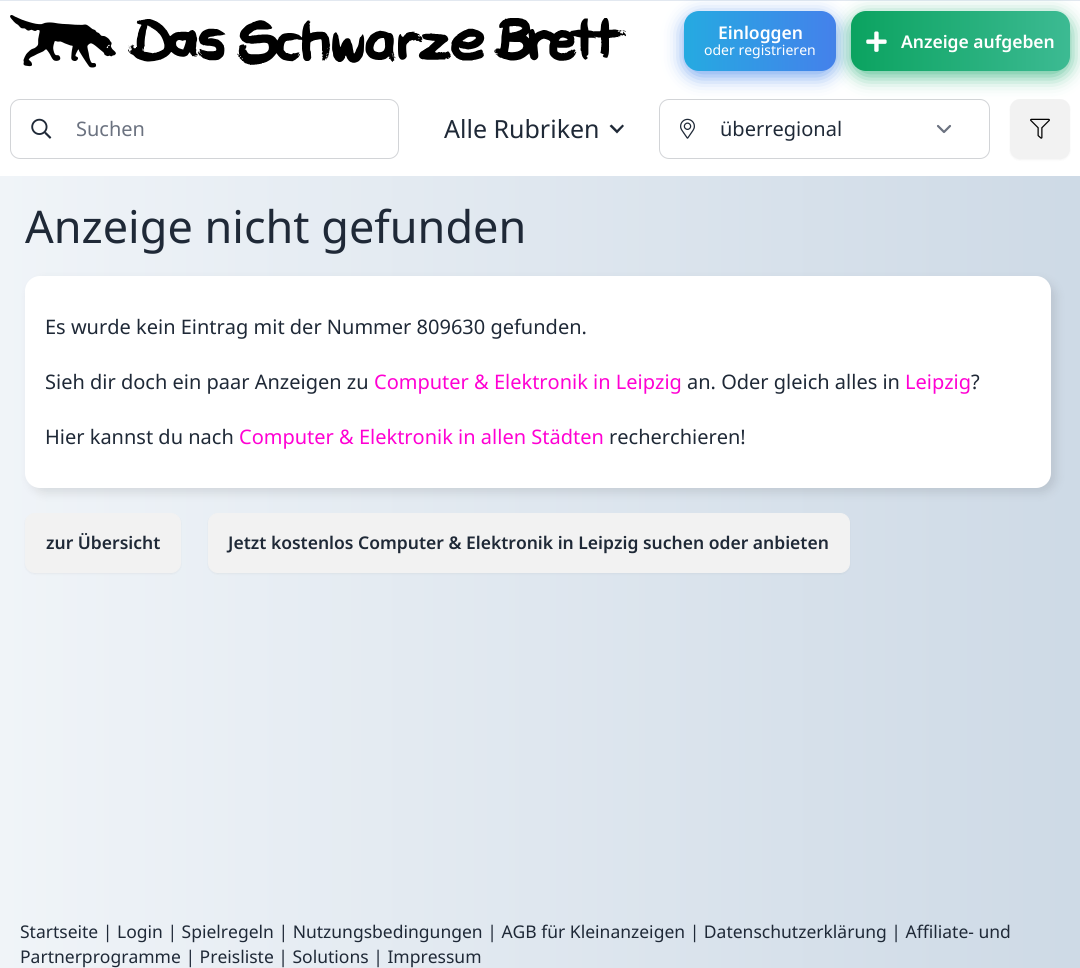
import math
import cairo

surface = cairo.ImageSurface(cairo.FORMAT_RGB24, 1080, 968)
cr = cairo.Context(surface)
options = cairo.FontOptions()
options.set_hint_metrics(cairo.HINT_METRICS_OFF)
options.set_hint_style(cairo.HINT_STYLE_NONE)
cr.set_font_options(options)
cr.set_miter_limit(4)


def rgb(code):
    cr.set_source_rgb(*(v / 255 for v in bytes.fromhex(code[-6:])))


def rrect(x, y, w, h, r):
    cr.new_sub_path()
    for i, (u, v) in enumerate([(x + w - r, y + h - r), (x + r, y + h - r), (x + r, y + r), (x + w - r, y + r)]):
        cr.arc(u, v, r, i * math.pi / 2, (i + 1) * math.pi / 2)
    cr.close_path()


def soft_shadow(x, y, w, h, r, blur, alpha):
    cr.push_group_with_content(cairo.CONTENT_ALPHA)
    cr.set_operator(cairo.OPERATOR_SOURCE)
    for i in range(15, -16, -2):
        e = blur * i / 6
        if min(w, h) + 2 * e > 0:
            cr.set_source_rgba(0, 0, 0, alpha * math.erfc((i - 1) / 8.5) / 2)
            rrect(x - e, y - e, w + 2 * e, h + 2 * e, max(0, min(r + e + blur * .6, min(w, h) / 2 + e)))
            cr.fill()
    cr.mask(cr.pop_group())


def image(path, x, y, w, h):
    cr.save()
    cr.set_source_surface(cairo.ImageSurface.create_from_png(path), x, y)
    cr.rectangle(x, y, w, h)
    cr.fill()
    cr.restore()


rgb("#ffffff")
cr.paint()
rgb("#e2e8f0")
cr.rectangle(0, 0, 1080, 1)
cr.fill()
image("img/1.png", 10, 15, 106, 53)
image("img/2.png", 128, 18, 498, 47)
rrect(659.5, 99.5, 330, 59, 9.5)
rgb("#d2d4d7")
cr.set_line_width(1)
cr.stroke()
rgb("#4184ea")
soft_shadow(684, 16, 152, 60, 15, 9.5, 0.75)
gradient = cairo.LinearGradient(684, 41, 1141, 41)
gradient.add_color_stop_rgba(0, 0.145, 0.667, 0.882, 1)
gradient.add_color_stop_rgba(0.33, 0.267, 0.506, 0.922, 1)
gradient.add_color_stop_rgba(0.67, 0.016, 0.745, 0.996, 1)
gradient.add_color_stop_rgba(1, 0.247, 0.525, 0.929, 1)
cr.set_source(gradient)
rrect(684, 11, 152, 60, 15)
cr.fill()
rgb("#000000")
soft_shadow(1010, 100, 60, 60, 10, 1, 0.05)
rgb("#f2f2f2")
rrect(1010, 99, 60, 60, 10)
cr.fill()
rgb("#17a86c")
soft_shadow(851, 16, 219, 60, 15, 9.5, 0.75)
gradient = cairo.LinearGradient(851, 41, 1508, 41)
gradient.add_color_stop_rgba(0, 0.043, 0.639, 0.376, 1)
gradient.add_color_stop_rgba(0.33, 0.235, 0.729, 0.573, 1)
gradient.add_color_stop_rgba(0.67, 0.188, 0.867, 0.541, 1)
gradient.add_color_stop_rgba(1, 0.169, 0.714, 0.451, 1)
cr.set_source(gradient)
rrect(851, 11, 219, 60, 15)
cr.fill()
image("img/3.png", 866, 31, 21, 21)
gradient = cairo.LinearGradient(0, 525, 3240, 525)
gradient.add_color_stop_rgba(0, 0.941, 0.957, 0.973, 1)
gradient.add_color_stop_rgba(0.33, 0.808, 0.855, 0.902, 1)
gradient.add_color_stop_rgba(0.67, 0.812, 0.847, 0.89, 1)
gradient.add_color_stop_rgba(1, 0.741, 0.78, 0.847, 1)
cr.set_source(gradient)
cr.rectangle(0, 176, 1080, 792)
cr.fill()
rrect(10.5, 99.5, 388, 59, 9.5)
rgb("#d2d4d7")
cr.stroke()
image("img/4.png", 31, 118, 21, 21)
rgb("#1f2937")
cr.new_path()
cr.move_to(622.5, 124.5)
cr.line_to(617, 130)
cr.line_to(611.5, 124.5)
cr.line_to(609.5, 126)
cr.line_to(617, 133.5)
cr.line_to(624, 126)
cr.close_path()
cr.fill()
image("img/5.png", 680, 118, 15, 21)
cr.new_path()
cr.move_to(938, 126)
cr.line_to(944, 132)
cr.line_to(950, 126)
rgb("#6b7280")
cr.set_line_width(2.2)
cr.set_line_cap(cairo.LINE_CAP_ROUND)
cr.set_line_join(cairo.LINE_JOIN_ROUND)
cr.stroke()
image("img/6.png", 1030, 118, 20, 21)
rgb("#000000")
soft_shadow(30, 281, 1026, 212, 15, 5, 0.1)
rgb("#ffffff")
rrect(25, 276, 1026, 212, 15)
cr.fill()
rgb("#000000")
soft_shadow(25, 514, 156, 60, 10, 1, 0.05)
rgb("#f2f2f2")
rrect(25.5, 513.5, 155, 59, 9.5)
cr.fill_preserve()
cr.set_line_width(1)
cr.set_line_cap(cairo.LINE_CAP_BUTT)
cr.set_line_join(cairo.LINE_JOIN_MITER)
cr.stroke()
rgb("#000000")
soft_shadow(208, 514, 642, 60, 10, 1, 0.05)
rgb("#f2f2f2")
rrect(208.5, 513.5, 641, 59, 9.5)
cr.fill_preserve()
cr.stroke()
cr.select_font_face("Noto Sans SemiBold")
cr.set_font_size(17.5)
rgb("#ffffff")
cr.move_to(718, 39)
cr.show_text("Einloggen")
cr.select_font_face("Noto Sans")
cr.set_font_size(14)
cr.move_to(704, 55)
cr.show_text("oder registrieren")
cr.select_font_face("Noto Sans SemiBold")
cr.set_font_size(17.5)
cr.move_to(901, 48)
cr.show_text("Anzeige aufgeben")
cr.select_font_face("Noto Sans")
cr.set_font_size(20)
rgb("#6b7280")
cr.move_to(76, 136)
cr.show_text("Suchen")
cr.set_font_size(25)
rgb("#1f2937")
cr.move_to(444, 138)
cr.show_text("Alle Rubriken")
cr.set_font_size(20)
cr.move_to(720, 136)
cr.show_text("überregional")
cr.set_font_size(45)
cr.move_to(25, 243)
cr.show_text("Anzeige nicht gefunden")
cr.set_font_size(20)
cr.move_to(45, 334)
cr.show_text("Es wurde kein Eintrag mit der Nummer 809630 gefunden.")
cr.move_to(45, 389)
cr.show_text("Sieh dir doch ein paar Anzeigen zu")
rgb("#ff00d3")
cr.move_to(374, 389)
cr.show_text("Computer & Elektronik in Leipzig")
rgb("#1f2937")
cr.move_to(687, 389)
cr.show_text("an. Oder gleich alles in")
rgb("#ff00d3")
cr.move_to(905, 389)
cr.show_text("Leipzig")
rgb("#1f2937")
cr.move_to(971, 389)
cr.show_text("?")
cr.move_to(45, 444)
cr.show_text("Hier kannst du nach")
rgb("#ff00d3")
cr.move_to(239, 444)
cr.show_text("Computer & Elektronik in allen Städten")
rgb("#1f2937")
cr.move_to(609, 444)
cr.show_text("recherchieren!")
cr.select_font_face("Noto Sans SemiBold")
cr.set_font_size(17.5)
cr.move_to(46, 549)
cr.show_text("zur Übersicht")
cr.move_to(228, 549)
cr.show_text("Jetzt kostenlos Computer & Elektronik in Leipzig suchen oder anbieten")
cr.select_font_face("Noto Sans")
cr.move_to(20, 938)
cr.show_text("Startseite | Login | Spielregeln | Nutzungsbedingungen | AGB für Kleinanzeigen | Datenschutzerklärung | Affiliate- und")
cr.move_to(20, 963)
cr.show_text("Partnerprogramme | Preisliste | Solutions | Impressum")
surface.write_to_png("page.png")
